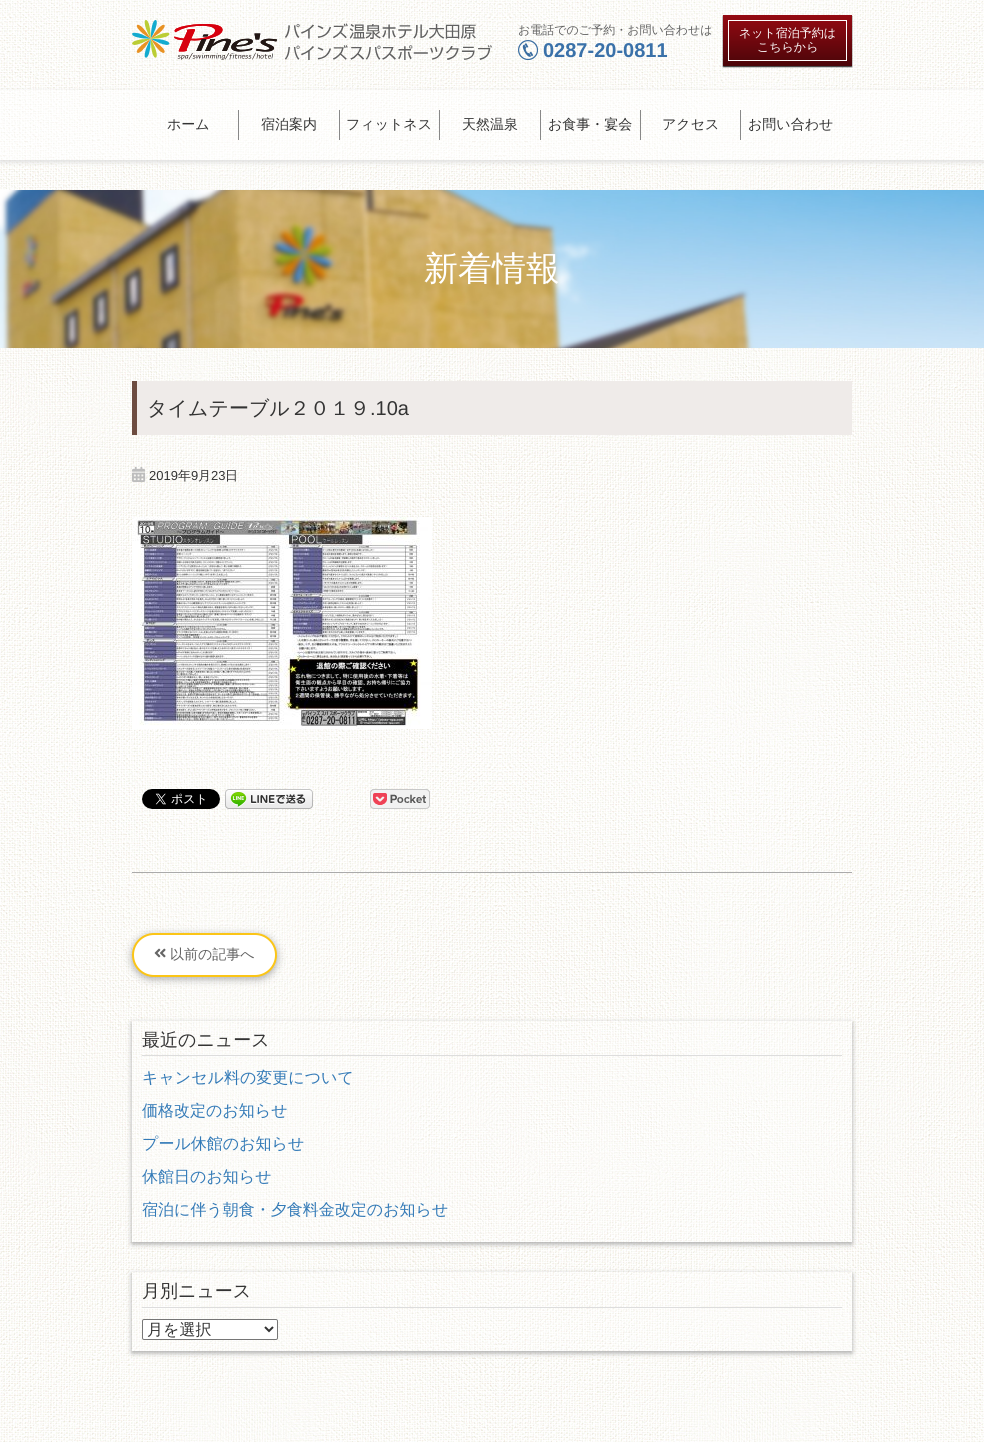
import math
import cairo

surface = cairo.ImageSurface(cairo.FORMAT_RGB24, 984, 1442)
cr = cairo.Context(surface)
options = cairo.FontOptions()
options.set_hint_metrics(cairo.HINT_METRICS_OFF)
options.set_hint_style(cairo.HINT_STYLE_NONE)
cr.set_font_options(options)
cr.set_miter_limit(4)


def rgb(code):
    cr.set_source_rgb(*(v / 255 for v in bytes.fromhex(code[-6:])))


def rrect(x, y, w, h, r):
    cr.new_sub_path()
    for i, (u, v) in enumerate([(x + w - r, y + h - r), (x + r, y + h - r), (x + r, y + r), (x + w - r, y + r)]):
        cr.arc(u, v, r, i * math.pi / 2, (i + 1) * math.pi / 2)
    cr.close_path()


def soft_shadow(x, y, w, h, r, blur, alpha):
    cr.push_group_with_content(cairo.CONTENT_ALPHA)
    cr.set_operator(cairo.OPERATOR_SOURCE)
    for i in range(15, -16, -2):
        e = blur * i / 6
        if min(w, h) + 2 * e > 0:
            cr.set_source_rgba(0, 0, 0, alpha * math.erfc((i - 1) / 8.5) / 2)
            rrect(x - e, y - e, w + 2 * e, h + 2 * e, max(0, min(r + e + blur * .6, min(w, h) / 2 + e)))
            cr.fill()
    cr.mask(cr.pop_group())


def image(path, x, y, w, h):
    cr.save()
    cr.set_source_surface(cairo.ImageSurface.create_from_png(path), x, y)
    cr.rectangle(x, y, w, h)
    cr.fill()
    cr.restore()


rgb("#ffffff")
cr.paint()
image("img/1.png", 0, 0, 984, 1442)
image("img/2.png", 132, 20, 360, 40)
image("img/3.png", 518, 40, 20, 20)
rgb("#333333")
soft_shadow(723, 16, 129, 51, 0, 0.5, 1)
gradient = cairo.LinearGradient(788, 15, 788, 66)
gradient.add_color_stop_rgba(0, 0.584, 0.039, 0.071, 1)
gradient.add_color_stop_rgba(1, 0.294, 0.02, 0.035, 1)
cr.set_source(gradient)
cr.rectangle(723, 15, 129, 51)
cr.fill()
cr.rectangle(728.5, 20.5, 118, 40)
rgb("#ffffff")
cr.set_line_width(1)
cr.stroke()
cr.save()
cr.set_fill_rule(cairo.FILL_RULE_EVEN_ODD)
cr.new_path()
cr.move_to(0, 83)
cr.line_to(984, 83)
cr.line_to(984, 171)
cr.line_to(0, 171)
cr.close_path()
cr.move_to(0, 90)
cr.line_to(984, 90)
cr.line_to(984, 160)
cr.line_to(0, 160)
cr.close_path()
cr.clip()
rgb("#dddddd")
soft_shadow(0, 92, 984, 70, 0, 2.5, 1)
cr.restore()
cr.set_source_rgba(1, 1, 1, 0.5)
cr.rectangle(0, 90, 984, 70)
cr.fill()
rgb("#888888")
cr.rectangle(238, 110, 1, 30)
cr.rectangle(339, 110, 1, 30)
cr.rectangle(439, 110, 1, 30)
cr.rectangle(540, 110, 1, 30)
cr.rectangle(640, 110, 1, 30)
cr.rectangle(740, 110, 1, 30)
cr.fill()
image("img/4.png", 0, 190, 984, 158)
rgb("#efebe9")
cr.rectangle(137, 381, 715, 54)
cr.fill()
rgb("#6d4c41")
cr.rectangle(132, 381, 5, 54)
cr.fill()
image("img/5.png", 132, 467, 14, 15)
rgb("#aaaaaa")
cr.rectangle(132, 872, 720, 1)
cr.fill()
image("img/6.png", 132, 517, 300, 212)
image("img/7.png", 142, 789, 78, 20)
image("img/8.png", 225, 789, 88, 20)
image("img/9.png", 370, 789, 60, 20)
rgb("#aaaaaa")
soft_shadow(132, 935, 145, 44, 22, 4, 1)
rgb("#ffffff")
rrect(133, 934, 143, 42, 21)
cr.fill_preserve()
rgb("#fbc516")
cr.set_line_width(2)
cr.stroke()
image("img/10.png", 154, 948, 12, 10)
cr.save()
cr.set_fill_rule(cairo.FILL_RULE_EVEN_ODD)
cr.new_path()
cr.move_to(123, 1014)
cr.line_to(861, 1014)
cr.line_to(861, 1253)
cr.line_to(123, 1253)
cr.close_path()
cr.move_to(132, 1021)
cr.line_to(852, 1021)
cr.line_to(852, 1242)
cr.line_to(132, 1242)
cr.close_path()
cr.clip()
rgb("#aaaaaa")
soft_shadow(132, 1023, 720, 221, 0, 2.5, 1)
cr.restore()
cr.set_source_rgba(1, 1, 1, 0.2)
cr.rectangle(132, 1021, 720, 221)
cr.fill()
rgb("#dddddd")
cr.rectangle(142, 1055, 700, 1)
cr.fill()
cr.save()
cr.set_fill_rule(cairo.FILL_RULE_EVEN_ODD)
cr.new_path()
cr.move_to(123, 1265)
cr.line_to(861, 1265)
cr.line_to(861, 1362)
cr.line_to(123, 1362)
cr.close_path()
cr.move_to(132, 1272)
cr.line_to(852, 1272)
cr.line_to(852, 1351)
cr.line_to(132, 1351)
cr.close_path()
cr.clip()
rgb("#aaaaaa")
soft_shadow(132, 1274, 720, 79, 0, 2.5, 1)
cr.restore()
cr.set_source_rgba(1, 1, 1, 0.2)
cr.rectangle(132, 1272, 720, 79)
cr.fill()
rgb("#dddddd")
cr.rectangle(142, 1307, 700, 1)
cr.fill()
rgb("#ffffff")
rrect(142.5, 1319.5, 135, 20, 1.5)
cr.fill_preserve()
rgb("#767676")
cr.set_line_width(1)
cr.stroke()
cr.new_path()
cr.move_to(265, 1327)
cr.line_to(269, 1331)
cr.line_to(273, 1327)
rgb("#333333")
cr.set_line_width(2)
cr.stroke()
cr.select_font_face("WenQuanYi Zen Hei Medium")
cr.set_font_size(12)
rgb("#616161")
cr.move_to(518, 34)
cr.show_text("お電話でのご予約・お問い合わせは")
cr.select_font_face("Liberation Sans", cairo.FONT_SLANT_NORMAL, cairo.FONT_WEIGHT_BOLD)
cr.set_font_size(20)
rgb("#3a71a9")
cr.move_to(543, 57)
cr.show_text("0287-20-0811")
cr.select_font_face("WenQuanYi Zen Hei Medium")
cr.set_font_size(12)
rgb("#ffffff")
cr.move_to(739, 37)
cr.show_text("ネット宿泊予約は")
cr.move_to(757, 51)
cr.show_text("こちらから")
cr.set_font_size(14)
rgb("#333333")
for x, y, s in [
    (167, 129, "ホーム"),
    (261, 129, "宿泊案内"),
    (346, 129, "フィットネス"),
    (462, 129, "天然温泉"),
    (548, 129, "お食事・宴会"),
    (662, 129, "アクセス"),
    (748, 129, "お問い合わせ"),
]:
    cr.move_to(x, y)
    cr.show_text(s)
cr.set_font_size(34)
rgb("#ffffff")
cr.move_to(424, 280)
cr.show_text("新着情報")
cr.set_font_size(20)
rgb("#333333")
cr.move_to(147, 415)
cr.show_text("タイムテーブル２０１９")
cr.select_font_face("Liberation Sans")
cr.move_to(370, 415)
cr.show_text(".10a")
cr.set_font_size(13)
cr.move_to(149, 480)
cr.show_text("2019")
cr.select_font_face("WenQuanYi Zen Hei Medium")
cr.move_to(178, 480)
cr.show_text("年")
cr.select_font_face("Liberation Sans")
cr.move_to(191, 480)
cr.show_text("9")
cr.select_font_face("WenQuanYi Zen Hei Medium")
cr.move_to(198, 480)
cr.show_text("月")
cr.select_font_face("Liberation Sans")
cr.move_to(211, 480)
cr.show_text("23")
cr.select_font_face("WenQuanYi Zen Hei Medium")
cr.move_to(225, 480)
cr.show_text("日")
cr.set_font_size(14)
rgb("#616161")
cr.move_to(170, 959)
cr.show_text("以前の記事へ")
cr.set_font_size(18)
rgb("#333333")
cr.move_to(142, 1046)
cr.show_text("最近のニュース")
cr.set_font_size(16)
rgb("#337ab7")
for x, y, s in [
    (142, 1083, "キャンセル料の変更について"),
    (142, 1116, "価格改定のお知らせ"),
    (142, 1149, "プール休館のお知らせ"),
    (142, 1182, "休館日のお知らせ"),
    (142, 1215, "宿泊に伴う朝食・夕食料金改定のお知らせ"),
]:
    cr.move_to(x, y)
    cr.show_text(s)
cr.set_font_size(18)
rgb("#333333")
cr.move_to(142, 1297)
cr.show_text("月別ニュース")
cr.set_font_size(16)
cr.move_to(147, 1335)
cr.show_text("月を選択")
surface.write_to_png("page.png")
